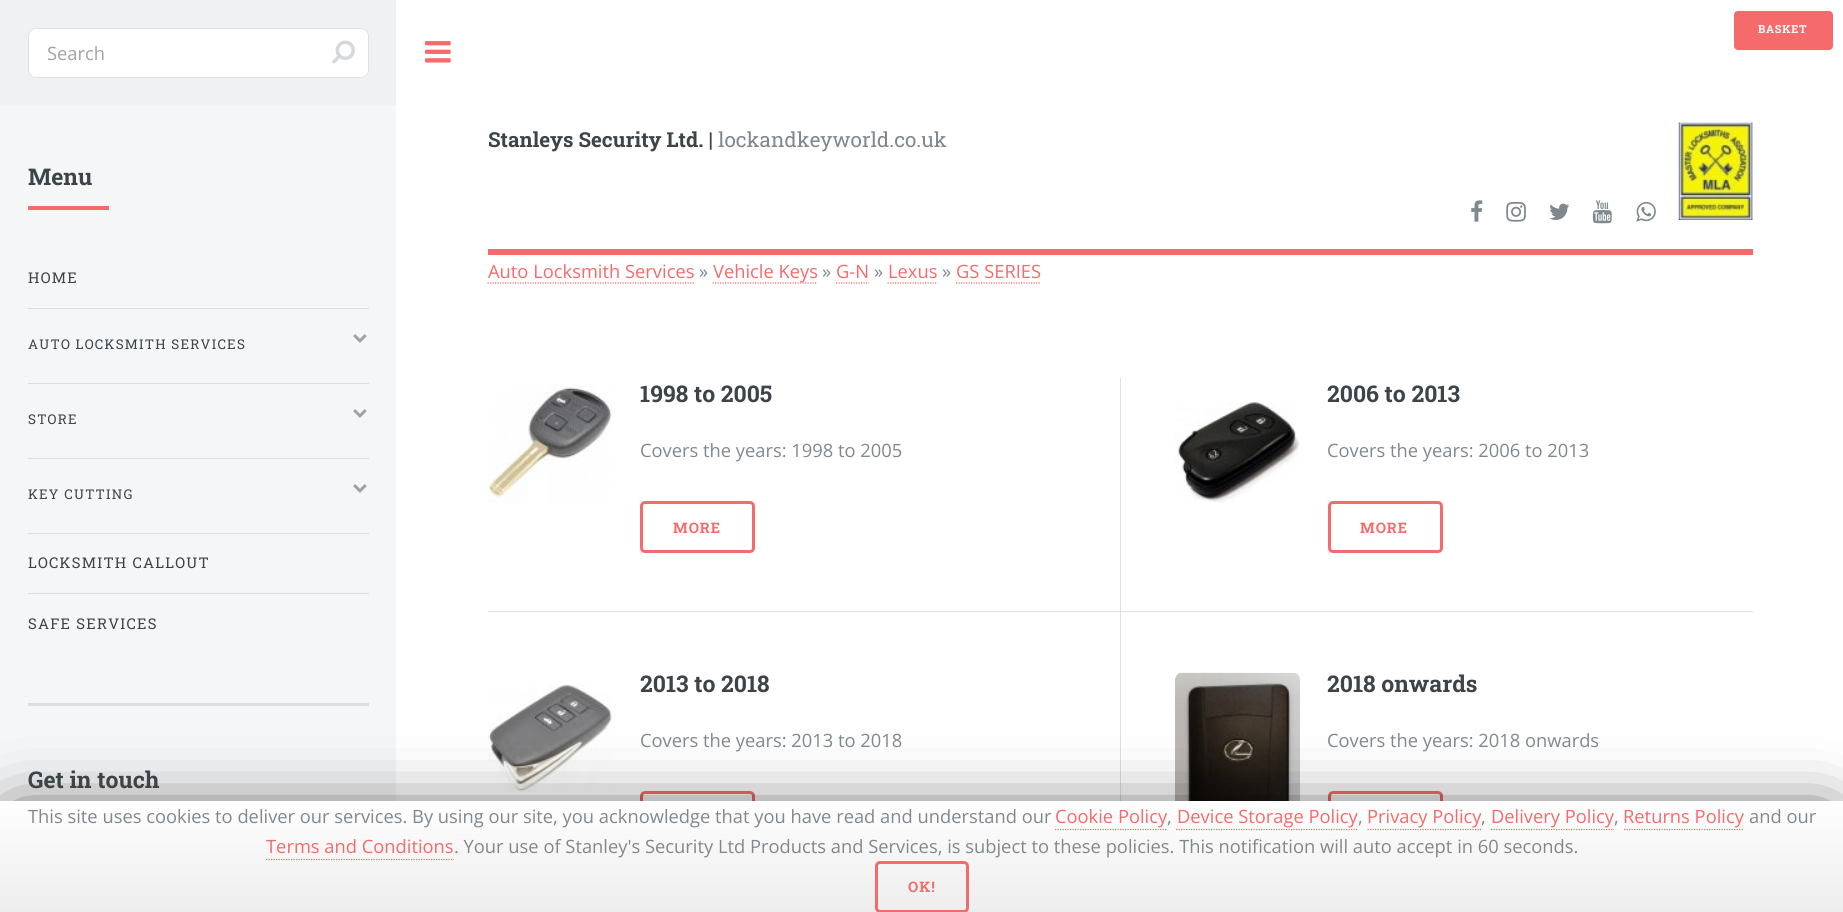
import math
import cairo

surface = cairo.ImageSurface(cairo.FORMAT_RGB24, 1843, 912)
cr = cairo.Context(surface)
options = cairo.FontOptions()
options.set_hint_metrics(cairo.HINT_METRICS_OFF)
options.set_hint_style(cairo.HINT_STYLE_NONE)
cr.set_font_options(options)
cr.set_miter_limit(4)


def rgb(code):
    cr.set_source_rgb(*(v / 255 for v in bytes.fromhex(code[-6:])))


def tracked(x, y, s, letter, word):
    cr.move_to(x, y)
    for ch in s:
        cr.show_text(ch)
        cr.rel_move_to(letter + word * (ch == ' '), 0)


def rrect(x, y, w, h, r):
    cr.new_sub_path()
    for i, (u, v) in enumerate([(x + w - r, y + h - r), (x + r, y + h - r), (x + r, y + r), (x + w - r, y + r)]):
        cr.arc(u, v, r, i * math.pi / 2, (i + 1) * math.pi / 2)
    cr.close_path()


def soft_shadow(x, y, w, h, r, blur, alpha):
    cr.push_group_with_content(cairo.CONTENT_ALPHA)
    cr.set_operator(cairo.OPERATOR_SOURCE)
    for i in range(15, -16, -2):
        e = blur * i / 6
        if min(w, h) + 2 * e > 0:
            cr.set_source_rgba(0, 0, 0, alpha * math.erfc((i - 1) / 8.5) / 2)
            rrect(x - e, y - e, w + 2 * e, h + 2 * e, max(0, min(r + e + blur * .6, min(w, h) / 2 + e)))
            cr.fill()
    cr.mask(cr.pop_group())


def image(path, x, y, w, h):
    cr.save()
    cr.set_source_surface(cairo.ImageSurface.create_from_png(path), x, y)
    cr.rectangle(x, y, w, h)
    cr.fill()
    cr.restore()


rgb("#ffffff")
cr.paint()
for x, y, w, h, color in [
    (488, 611, 1265, 1, "#dde1e3"),
    (0, 105, 396, 696, "#f5f6f7"),
    (0, 0, 396, 105, "#eff1f2"),
]:
    rgb(color)
    cr.rectangle(x, y, w, h)
    cr.fill()
rgb("#ffffff")
rrect(28, 28, 341, 50, 8)
cr.fill()
rrect(28.5, 28.5, 340, 49, 7.5)
cr.set_source_rgba(0.824, 0.843, 0.851, 0.75)
cr.set_line_width(1)
cr.stroke()
image("img/1.png", 332, 40, 23, 24)
for x, y, w, h, color in [
    (28, 703, 341, 3, "#dbdfe1"),
    (28, 206, 81, 4, "#f56a6a"),
    (28, 308, 341, 1, "#dbdfe1"),
]:
    rgb(color)
    cr.rectangle(x, y, w, h)
    cr.fill()
image("img/2.png", 353, 334, 14, 9)
cr.rectangle(28, 383, 341, 1)
cr.fill()
image("img/2.png", 353, 409, 14, 9)
cr.rectangle(28, 458, 341, 1)
cr.fill()
image("img/2.png", 353, 484, 14, 9)
cr.rectangle(28, 533, 341, 1)
cr.fill()
cr.rectangle(28, 593, 341, 1)
cr.fill()
image("img/3.png", 425, 41, 26, 22)
rgb("#f56a6a")
rrect(1734, 11, 99, 39, 4)
cr.fill()
cr.rectangle(488, 249, 1265, 6)
cr.fill()
image("img/4.png", 1471, 200, 12, 22)
image("img/5.png", 1506, 202, 20, 20)
image("img/6.png", 1549, 203, 21, 17)
image("img/7.png", 1592, 200, 20, 24)
image("img/8.png", 1636, 201, 20, 21)
image("img/9.png", 1678, 122, 75, 98)
cr.new_path()
cr.move_to(487.5, 283)
cr.line_to(694, 283)
cr.set_line_width(1.2)
cr.set_dash([1.25, 1.25])
cr.stroke()
cr.new_path()
cr.move_to(712.5, 283)
cr.line_to(817.5, 283)
cr.stroke()
cr.new_path()
cr.move_to(836, 283)
cr.line_to(869, 283)
cr.stroke()
cr.new_path()
cr.move_to(887.5, 283)
cr.line_to(937.5, 283)
cr.stroke()
cr.new_path()
cr.move_to(956, 283)
cr.line_to(1041, 283)
cr.stroke()
image("img/10.png", 488, 384, 124, 119)
rrect(641.5, 502.5, 112, 49, 3.5)
cr.set_line_width(3)
cr.set_dash([])
cr.stroke()
rgb("#dde1e3")
cr.rectangle(1120, 378, 1, 423)
cr.fill()
rgb("#d5dadc")
cr.rectangle(1120, 611, 1, 1)
cr.fill()
image("img/11.png", 1175, 402, 125, 101)
rrect(1329.5, 502.5, 112, 49, 3.5)
rgb("#f56a6a")
cr.stroke()
image("img/12.png", 488, 684, 124, 108)
rrect(641.5, 792.5, 112, 49, 3.5)
cr.stroke()
image("img/13.png", 1175, 672, 125, 129)
rrect(1329.5, 792.5, 112, 49, 3.5)
cr.stroke()
rgb("#000000")
soft_shadow(16, 824, 1812, 79, 0, 35, 1)
gradient = cairo.LinearGradient(922, 801, 922, 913)
gradient.add_color_stop_rgba(0, 1, 1, 1, 1)
gradient.add_color_stop_rgba(0.47, 0.965, 0.965, 0.965, 1)
gradient.add_color_stop_rgba(1, 0.929, 0.929, 0.929, 1)
cr.set_source(gradient)
cr.rectangle(0, 801, 1843, 111)
cr.fill()
cr.new_path()
cr.move_to(1055, 829.5)
cr.line_to(1167.5, 829.5)
rgb("#f56a6a")
cr.set_line_width(1.2)
cr.set_dash([1.25, 1.25])
cr.stroke()
cr.new_path()
cr.move_to(1176, 829.5)
cr.line_to(1357.5, 829.5)
cr.stroke()
cr.new_path()
cr.move_to(1367.5, 829.5)
cr.line_to(1481, 829.5)
cr.stroke()
cr.new_path()
cr.move_to(1491, 829.5)
cr.line_to(1614, 829.5)
cr.stroke()
cr.new_path()
cr.move_to(1624, 829.5)
cr.line_to(1744, 829.5)
cr.stroke()
cr.new_path()
cr.move_to(266, 859.5)
cr.line_to(454, 859.5)
cr.stroke()
rrect(876.5, 862.5, 91, 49, 3.5)
cr.set_line_width(3)
cr.set_dash([])
cr.stroke()
cr.select_font_face("Open Sans")
cr.set_font_size(18.33)
rgb("#9fa3a6")
cr.move_to(47, 60)
cr.show_text("Search")
cr.select_font_face("Roboto Slab", cairo.FONT_SLANT_NORMAL, cairo.FONT_WEIGHT_BOLD)
cr.set_font_size(23)
rgb("#3d4449")
cr.move_to(28, 185)
cr.show_text("Menu")
cr.select_font_face("Roboto Slab")
cr.set_font_size(14.8)
tracked(28, 283, "HOME", 1.25, 0)
cr.set_font_size(13.4)
for x, y, s in [
    (28, 349, "AUTO LOCKSMITH SERVICES"),
    (28, 424, "STORE"),
    (28, 499, "KEY CUTTING"),
]:
    tracked(x, y, s, 1.25, 0)
cr.set_font_size(14.8)
tracked(28, 568, "LOCKSMITH CALLOUT", 1.25, 0)
tracked(28, 629, "SAFE SERVICES", 1.25, 0)
cr.select_font_face("Roboto Slab", cairo.FONT_SLANT_NORMAL, cairo.FONT_WEIGHT_BOLD)
cr.set_font_size(23)
cr.move_to(28, 788)
cr.show_text("Get in touch")
cr.set_font_size(11)
rgb("#ffffff")
tracked(1758, 33, "BASKET", 0.75, 0)
cr.set_font_size(20.6)
rgb("#3d4449")
cr.move_to(488, 147)
cr.show_text("Stanleys Security Ltd. |")
cr.select_font_face("Roboto Slab")
rgb("#7f888f")
cr.move_to(718, 147)
cr.show_text("lockandkeyworld.co.uk")
cr.select_font_face("Open Sans")
cr.set_font_size(18.33)
rgb("#f56a6a")
cr.move_to(488, 278)
cr.show_text("Auto Locksmith Services")
rgb("#7f888f")
cr.move_to(699, 278)
cr.show_text("»")
rgb("#f56a6a")
cr.move_to(713, 278)
cr.show_text("Vehicle Keys")
rgb("#7f888f")
cr.move_to(822, 278)
cr.show_text("»")
rgb("#f56a6a")
cr.move_to(836, 278)
cr.show_text("G-N")
rgb("#7f888f")
cr.move_to(874, 278)
cr.show_text("»")
rgb("#f56a6a")
cr.move_to(888, 278)
cr.show_text("Lexus")
rgb("#7f888f")
cr.move_to(942, 278)
cr.show_text("»")
rgb("#f56a6a")
cr.move_to(956, 278)
cr.show_text("GS SERIES")
cr.select_font_face("Roboto Slab", cairo.FONT_SLANT_NORMAL, cairo.FONT_WEIGHT_BOLD)
cr.set_font_size(23)
rgb("#3d4449")
cr.move_to(640, 402)
cr.show_text("1998 to 2005")
cr.select_font_face("Open Sans")
cr.set_font_size(18.33)
rgb("#7f888f")
cr.move_to(640, 457)
cr.show_text("Covers the years: 1998 to 2005")
cr.select_font_face("Roboto Slab", cairo.FONT_SLANT_NORMAL, cairo.FONT_WEIGHT_BOLD)
cr.set_font_size(14.5)
rgb("#f56a6a")
tracked(673, 533, "MORE", 1, 0)
cr.set_font_size(23)
rgb("#3d4449")
cr.move_to(1327, 402)
cr.show_text("2006 to 2013")
cr.select_font_face("Open Sans")
cr.set_font_size(18.33)
rgb("#7f888f")
cr.move_to(1327, 457)
cr.show_text("Covers the years: 2006 to 2013")
cr.select_font_face("Roboto Slab", cairo.FONT_SLANT_NORMAL, cairo.FONT_WEIGHT_BOLD)
cr.set_font_size(14.5)
rgb("#f56a6a")
tracked(1360, 533, "MORE", 1, 0)
cr.set_font_size(23)
rgb("#3d4449")
cr.move_to(640, 692)
cr.show_text("2013 to 2018")
cr.select_font_face("Open Sans")
cr.set_font_size(18.33)
rgb("#7f888f")
cr.move_to(640, 747)
cr.show_text("Covers the years: 2013 to 2018")
cr.select_font_face("Roboto Slab", cairo.FONT_SLANT_NORMAL, cairo.FONT_WEIGHT_BOLD)
cr.set_font_size(23)
rgb("#3d4449")
cr.move_to(1327, 692)
cr.show_text("2018 onwards")
cr.select_font_face("Open Sans")
cr.set_font_size(18.33)
rgb("#7f888f")
cr.move_to(1327, 747)
cr.show_text("Covers the years: 2018 onwards")
cr.move_to(28, 823)
cr.show_text("This site uses cookies to deliver our services. By using our site, you acknowledge that you have read and understand our")
rgb("#f56a6a")
cr.move_to(1055, 823)
cr.show_text("Cookie Policy")
rgb("#7f888f")
cr.move_to(1167, 823)
cr.show_text(",")
rgb("#f56a6a")
cr.move_to(1177, 823)
cr.show_text("Device Storage Policy")
rgb("#7f888f")
cr.move_to(1358, 823)
cr.show_text(",")
rgb("#f56a6a")
cr.move_to(1367, 823)
cr.show_text("Privacy Policy")
rgb("#7f888f")
cr.move_to(1481, 823)
cr.show_text(",")
rgb("#f56a6a")
cr.move_to(1491, 823)
cr.show_text("Delivery Policy")
rgb("#7f888f")
cr.move_to(1614, 823)
cr.show_text(",")
rgb("#f56a6a")
cr.move_to(1623, 823)
cr.show_text("Returns Policy")
rgb("#7f888f")
cr.move_to(1749, 823)
cr.show_text("and our")
rgb("#f56a6a")
cr.move_to(266, 853)
cr.show_text("Terms and Conditions")
rgb("#7f888f")
cr.move_to(454, 853)
cr.show_text(". Your use of Stanley's Security Ltd Products and Services, is subject to these policies. This notification will auto accept in 60 seconds.")
cr.select_font_face("Roboto Slab", cairo.FONT_SLANT_NORMAL, cairo.FONT_WEIGHT_BOLD)
cr.set_font_size(14.5)
rgb("#f56a6a")
tracked(908, 892, "OK!", 1, 0)
surface.write_to_png("page.png")
